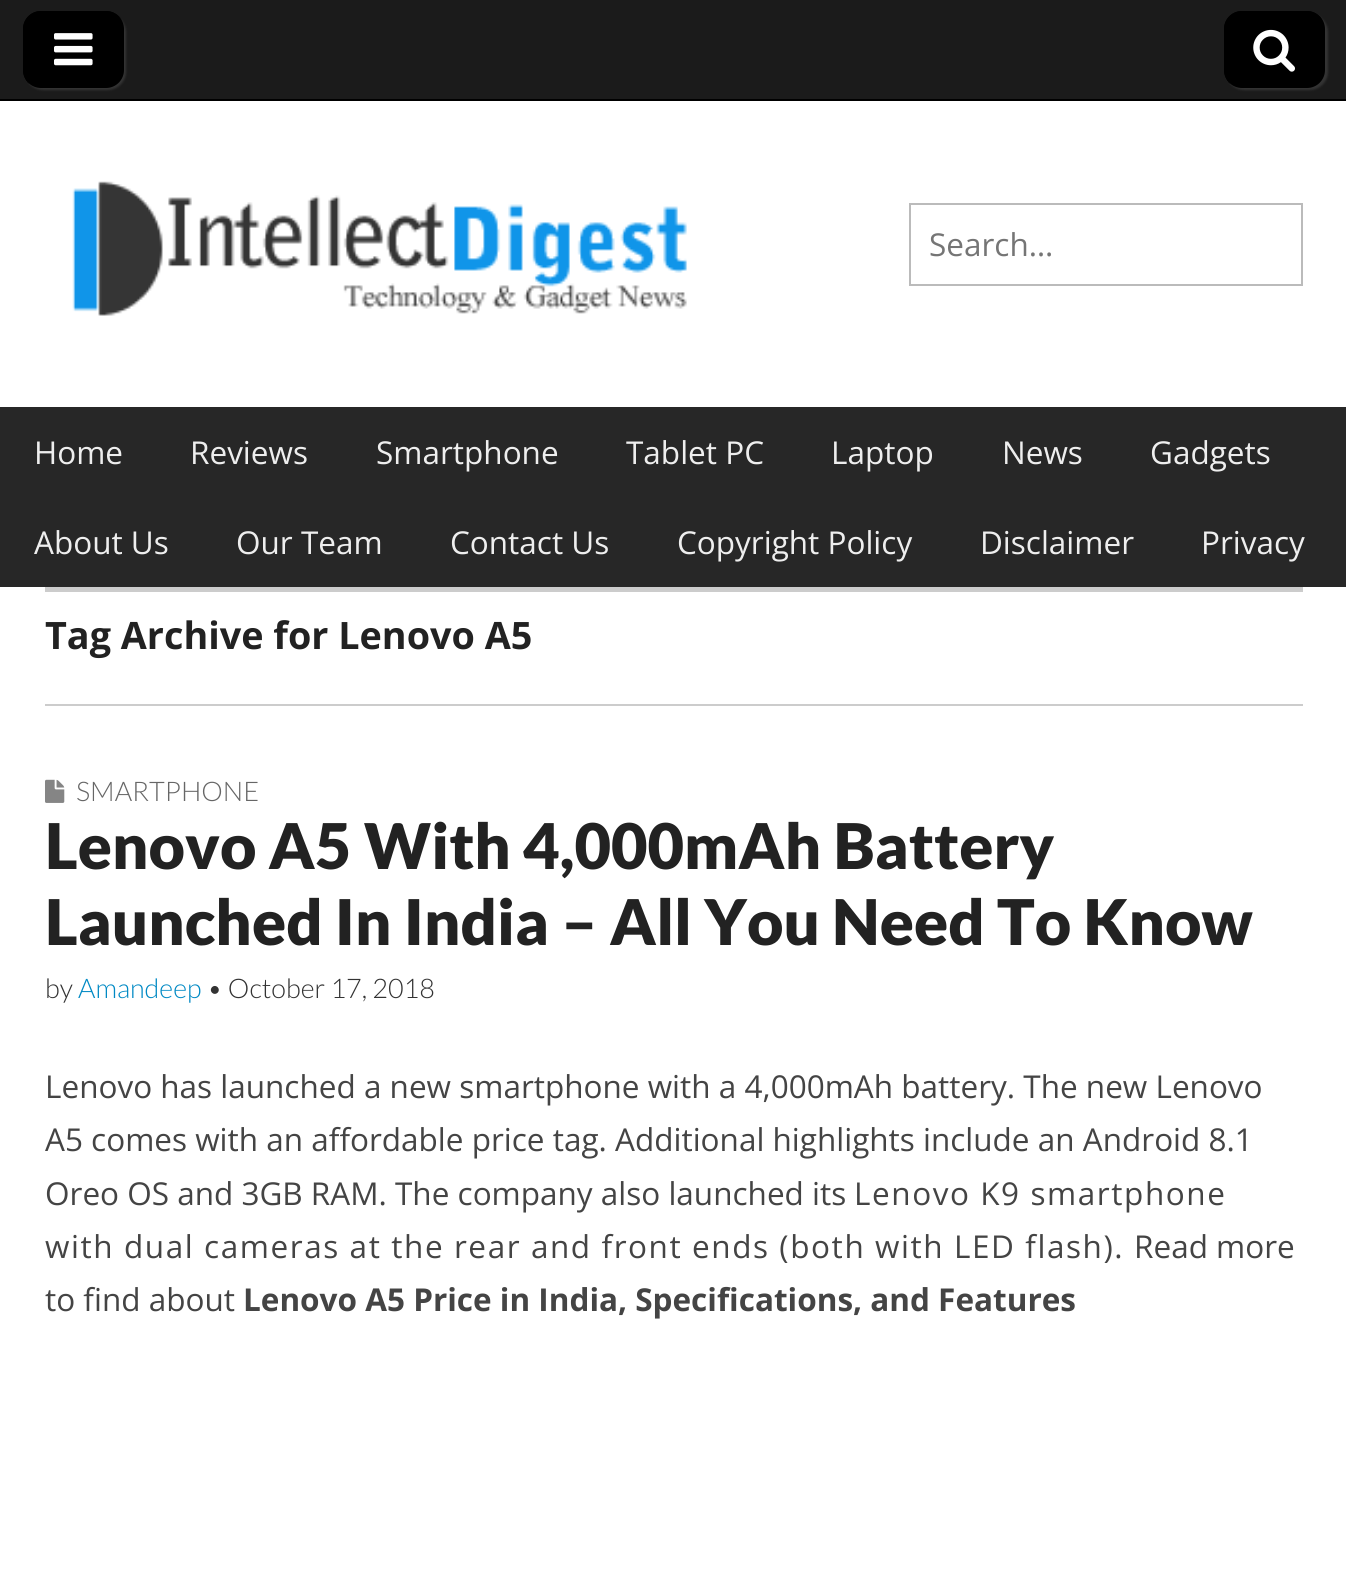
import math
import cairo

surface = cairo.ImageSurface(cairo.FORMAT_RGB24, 1346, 1586)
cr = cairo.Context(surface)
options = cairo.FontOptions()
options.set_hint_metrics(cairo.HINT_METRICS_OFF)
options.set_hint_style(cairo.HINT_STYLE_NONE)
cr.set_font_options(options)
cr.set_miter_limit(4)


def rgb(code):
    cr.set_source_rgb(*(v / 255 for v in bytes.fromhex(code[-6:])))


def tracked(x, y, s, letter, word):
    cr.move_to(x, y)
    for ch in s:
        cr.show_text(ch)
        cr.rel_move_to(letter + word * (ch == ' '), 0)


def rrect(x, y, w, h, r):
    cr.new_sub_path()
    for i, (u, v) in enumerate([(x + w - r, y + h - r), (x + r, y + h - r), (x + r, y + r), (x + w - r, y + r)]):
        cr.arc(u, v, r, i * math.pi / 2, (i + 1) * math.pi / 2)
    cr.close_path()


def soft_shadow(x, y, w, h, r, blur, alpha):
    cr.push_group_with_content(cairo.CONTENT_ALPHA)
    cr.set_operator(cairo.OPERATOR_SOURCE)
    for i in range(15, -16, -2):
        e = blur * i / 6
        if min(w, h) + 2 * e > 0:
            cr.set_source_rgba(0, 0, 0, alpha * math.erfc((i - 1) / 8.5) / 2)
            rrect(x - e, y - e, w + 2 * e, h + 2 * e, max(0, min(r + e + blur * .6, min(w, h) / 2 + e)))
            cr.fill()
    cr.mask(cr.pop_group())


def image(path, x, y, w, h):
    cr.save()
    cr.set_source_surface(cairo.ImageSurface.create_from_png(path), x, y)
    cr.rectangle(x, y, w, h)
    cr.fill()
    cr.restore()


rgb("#ffffff")
cr.paint()
rgb("#1b1b1b")
cr.rectangle(0, 0, 1346, 99)
cr.fill()
rgb("#000000")
cr.rectangle(0, 99, 1346, 2)
cr.fill()
rgb("#333333")
soft_shadow(25, 14, 101, 76, 18, 1, 1)
rgb("#000000")
rrect(23, 11, 101, 77, 18)
cr.fill()
cr.new_path()
cr.move_to(43, 14)
cr.line_to(108, 14)
cr.curve_to(114, 14, 119, 16, 122, 20)
cr.curve_to(119, 15, 113, 11, 106, 11)
cr.line_to(41, 11)
cr.curve_to(31, 11, 23, 19, 23, 29)
cr.line_to(23, 70)
cr.curve_to(23, 75, 25, 80, 29, 84)
cr.curve_to(27, 80, 25, 76, 25, 72)
cr.line_to(25, 32)
cr.curve_to(25, 22, 33, 14, 43, 14)
cr.close_path()
cr.fill()
image("img/1.png", 54, 33, 39, 33)
rgb("#333333")
soft_shadow(1226, 14, 102, 76, 18, 1, 1)
rgb("#000000")
rrect(1224, 11, 101, 77, 18)
cr.fill()
cr.new_path()
cr.move_to(1244, 14)
cr.line_to(1310, 14)
cr.curve_to(1314, 14, 1318, 16, 1322, 19)
cr.curve_to(1318, 14, 1313, 11, 1307, 11)
cr.line_to(1242, 11)
cr.curve_to(1232, 11, 1224, 19, 1224, 29)
cr.line_to(1224, 70)
cr.curve_to(1224, 75, 1226, 80, 1230, 84)
cr.curve_to(1228, 80, 1226, 76, 1226, 72)
cr.line_to(1226, 32)
cr.curve_to(1226, 22, 1234, 14, 1244, 14)
cr.close_path()
cr.fill()
image("img/2.png", 1253, 29, 42, 43)
image("img/3.png", 72, 181, 615, 135)
cr.rectangle(910, 204, 392, 81)
rgb("#bbbbbb")
cr.stroke()
for x, y, w, h, color in [
    (0, 407, 1346, 180, "#272727"),
    (45, 587, 1258, 5, "#cccccc"),
    (45, 704, 1258, 2, "#cccccc"),
]:
    rgb(color)
    cr.rectangle(x, y, w, h)
    cr.fill()
image("img/4.png", 45, 779, 20, 24)
cr.select_font_face("Open Sans")
cr.set_font_size(31.5)
rgb("#757575")
cr.move_to(929, 256)
cr.show_text("Search…")
rgb("#eeeeee")
for x, y, s in [
    (34, 464, "Home"),
    (190, 464, "Reviews"),
    (376, 464, "Smartphone"),
    (626, 464, "Tablet PC"),
    (831, 464, "Laptop"),
    (1002, 464, "News"),
    (1150, 464, "Gadgets"),
    (34, 554, "About Us"),
    (236, 554, "Our Team"),
    (450, 554, "Contact Us"),
    (677, 554, "Copyright Policy"),
    (980, 554, "Disclaimer"),
    (1201, 554, "Privacy"),
]:
    cr.move_to(x, y)
    cr.show_text(s)
cr.select_font_face("Open Sans", cairo.FONT_SLANT_NORMAL, cairo.FONT_WEIGHT_BOLD)
cr.set_font_size(37.75)
rgb("#222222")
cr.move_to(45, 649)
cr.show_text("Tag Archive for Lenovo A5")
cr.select_font_face("Lato Light")
cr.set_font_size(27)
rgb("#666666")
cr.move_to(76, 801)
cr.show_text("SMARTPHONE")
cr.select_font_face("Lato Black")
cr.set_font_size(63)
rgb("#222222")
cr.move_to(45, 869)
cr.show_text("Lenovo A5 With 4,000mAh Battery")
cr.move_to(45, 945)
cr.show_text("Launched In India – All You Need To Know")
cr.select_font_face("Lato Light")
cr.set_font_size(27)
rgb("#333333")
cr.move_to(45, 998)
cr.show_text("by")
rgb("#0089c4")
cr.move_to(78, 998)
cr.show_text("Amandeep")
rgb("#333333")
cr.move_to(207, 998)
cr.show_text("• October 17, 2018")
cr.select_font_face("Open Sans")
cr.set_font_size(31.5)
rgb("#444444")
for x, y, s in [
    (45, 1098, "Lenovo has launched a new smartphone with a 4,000mAh battery. The new Lenovo"),
    (45, 1151, "A5 comes with an affordable price tag. Additional highlights include an Android 8.1"),
    (45, 1205, "Oreo OS and 3GB RAM. The company also launched its"),
]:
    cr.move_to(x, y)
    cr.show_text(s)
tracked(854, 1205, "Lenovo K9 smartphone", 1.57, 0)
tracked(45, 1258, "with dual cameras at the rear and front ends (both with LED flash).", 1.57, 0)
cr.move_to(1134, 1258)
cr.show_text("Read more")
cr.move_to(45, 1311)
cr.show_text("to find about")
cr.select_font_face("Open Sans", cairo.FONT_SLANT_NORMAL, cairo.FONT_WEIGHT_BOLD)
cr.move_to(243, 1311)
cr.show_text("Lenovo A5 Price in India, Specifications, and Features")
surface.write_to_png("page.png")
